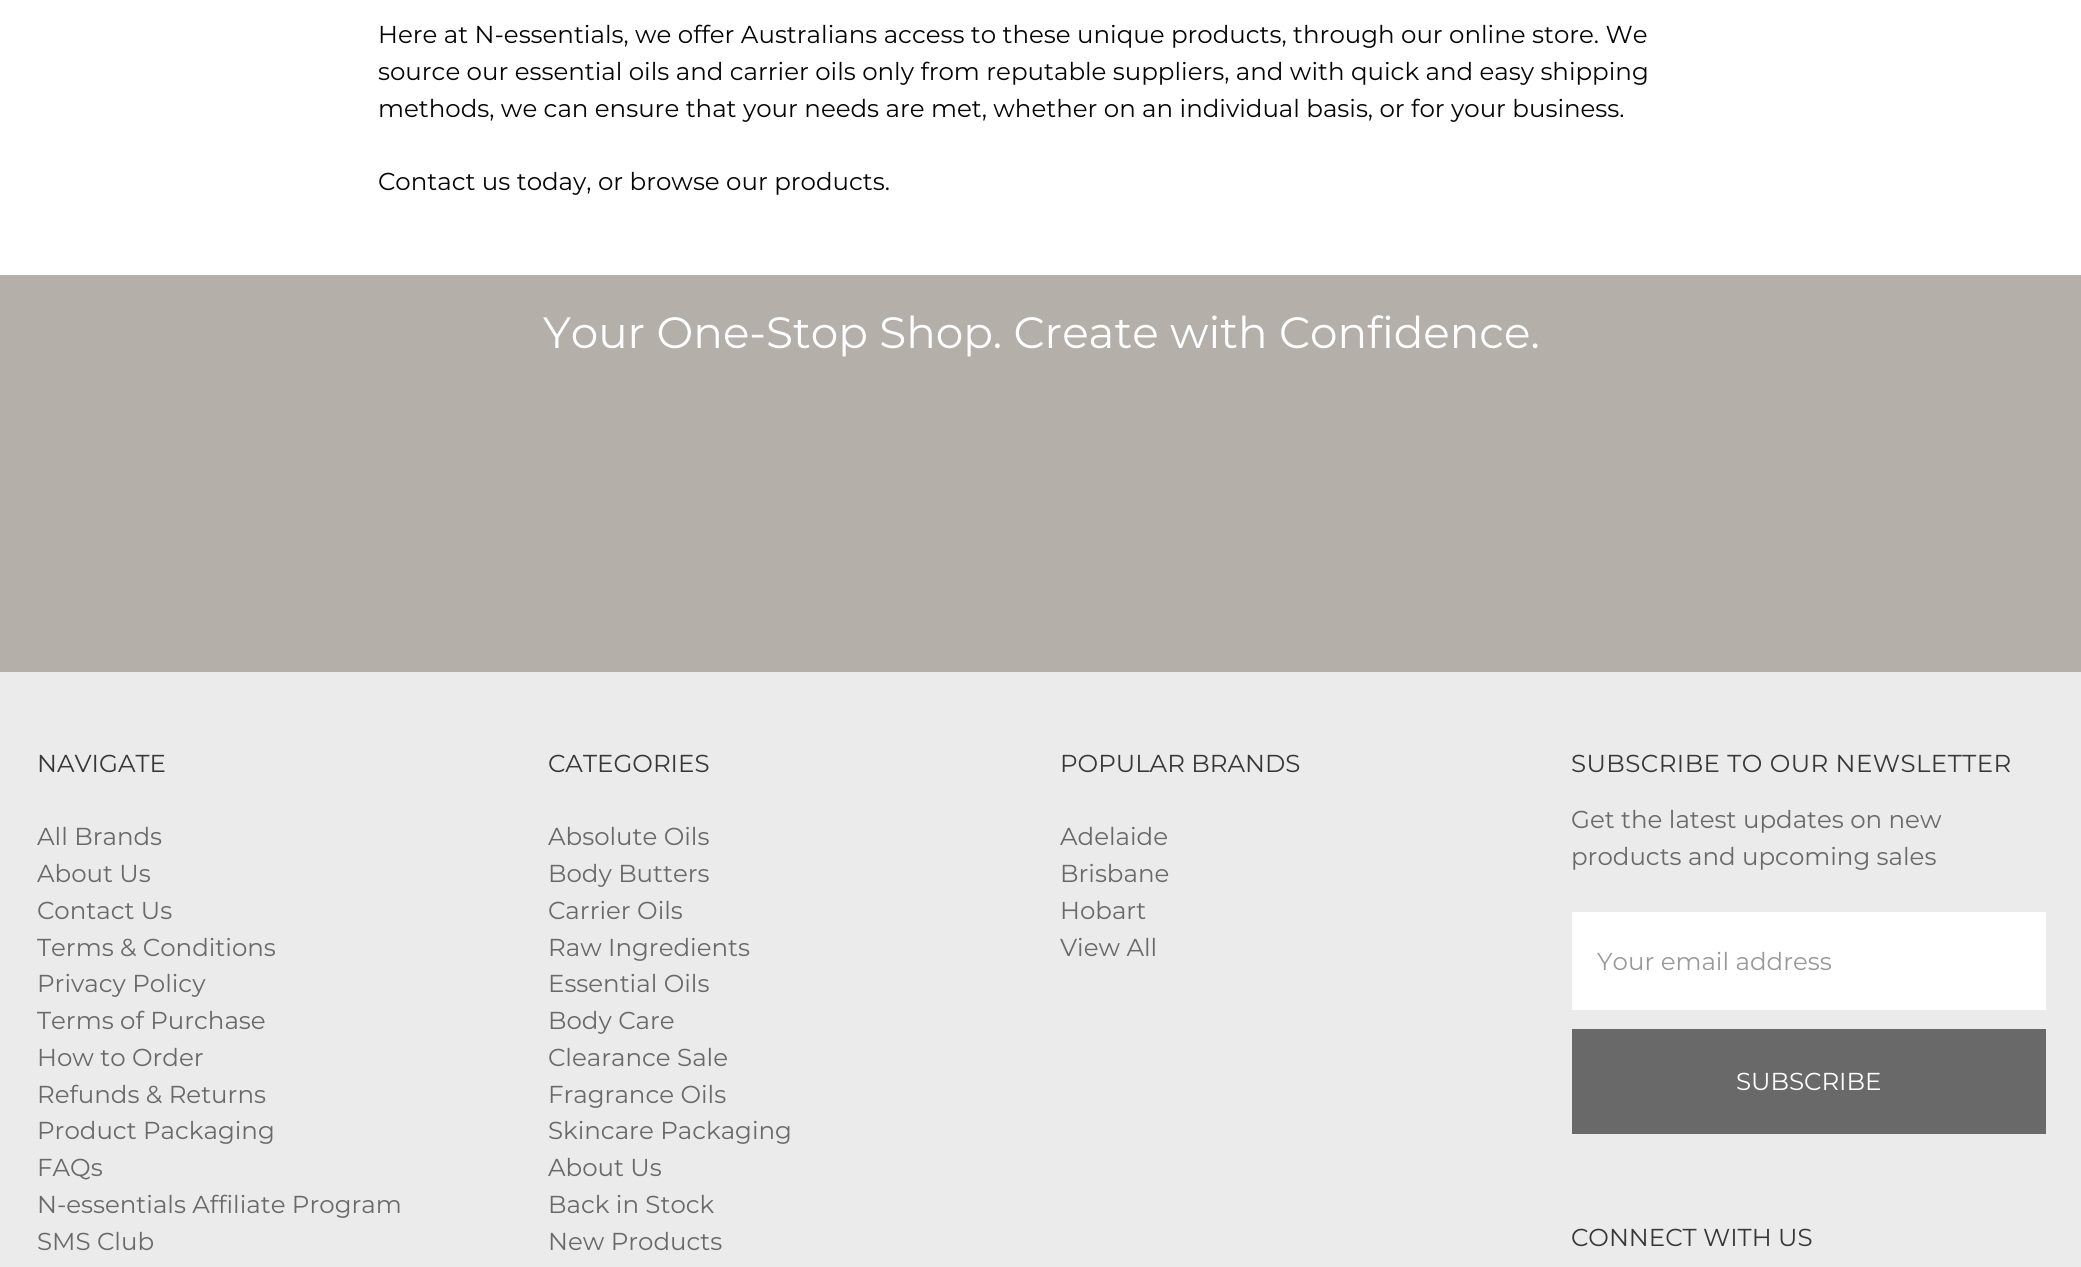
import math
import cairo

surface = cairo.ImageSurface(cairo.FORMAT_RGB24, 2081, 1267)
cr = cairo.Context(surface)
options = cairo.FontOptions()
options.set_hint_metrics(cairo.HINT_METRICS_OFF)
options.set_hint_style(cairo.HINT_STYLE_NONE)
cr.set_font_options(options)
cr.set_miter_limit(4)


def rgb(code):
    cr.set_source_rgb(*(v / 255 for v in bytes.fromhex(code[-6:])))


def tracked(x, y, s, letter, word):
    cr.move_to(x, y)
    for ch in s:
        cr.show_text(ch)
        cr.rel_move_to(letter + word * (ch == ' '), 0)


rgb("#ffffff")
cr.paint()
for x, y, w, h, color in [
    (0, 275, 2081, 397, "#b4b0a9"),
    (0, 672, 2081, 595, "#ebebeb"),
    (1572, 912, 474, 98, "#ffffff"),
    (1572, 1029, 474, 105, "#696969"),
]:
    rgb(color)
    cr.rectangle(x, y, w, h)
    cr.fill()
cr.select_font_face("Montserrat Thin")
cr.set_font_size(24.5)
rgb("#050505")
for x, y, s in [
    (378, 43, "Here at N-essentials, we offer Australians access to these unique products, through our online store. We"),
    (378, 80, "source our essential oils and carrier oils only from reputable suppliers, and with quick and easy shipping"),
    (378, 117, "methods, we can ensure that your needs are met, whether on an individual basis, or for your business."),
    (378, 190, "Contact us today, or browse our products."),
]:
    cr.move_to(x, y)
    cr.show_text(s)
cr.set_font_size(43.75)
rgb("#ffffff")
cr.move_to(543, 348)
cr.show_text("Your One-Stop Shop. Create with Confidence.")
cr.set_font_size(24.5)
rgb("#373737")
cr.move_to(37, 772)
cr.show_text("NAVIGATE")
rgb("#696969")
for x, y, s in [
    (37, 845, "All Brands"),
    (37, 882, "About Us"),
    (37, 919, "Contact Us"),
    (37, 956, "Terms & Conditions"),
    (37, 992, "Privacy Policy"),
    (37, 1029, "Terms of Purchase"),
    (37, 1066, "How to Order"),
    (37, 1103, "Refunds & Returns"),
    (37, 1139, "Product Packaging"),
    (37, 1176, "FAQs"),
    (37, 1213, "N-essentials Affiliate Program"),
    (37, 1250, "SMS Club"),
]:
    cr.move_to(x, y)
    cr.show_text(s)
rgb("#373737")
cr.move_to(548, 772)
cr.show_text("CATEGORIES")
rgb("#696969")
for x, y, s in [
    (548, 845, "Absolute Oils"),
    (548, 882, "Body Butters"),
    (548, 919, "Carrier Oils"),
    (548, 956, "Raw Ingredients"),
    (548, 992, "Essential Oils"),
    (548, 1029, "Body Care"),
    (548, 1066, "Clearance Sale"),
    (548, 1103, "Fragrance Oils"),
    (548, 1139, "Skincare Packaging"),
    (548, 1176, "About Us"),
    (548, 1213, "Back in Stock"),
    (548, 1250, "New Products"),
]:
    cr.move_to(x, y)
    cr.show_text(s)
rgb("#373737")
cr.move_to(1060, 772)
cr.show_text("POPULAR BRANDS")
rgb("#696969")
for x, y, s in [
    (1060, 845, "Adelaide"),
    (1060, 882, "Brisbane"),
    (1060, 919, "Hobart"),
    (1060, 956, "View All"),
]:
    cr.move_to(x, y)
    cr.show_text(s)
rgb("#373737")
tracked(1571, 772, "SUBSCRIBE TO OUR NEWSLETTER", 0.45, 0)
rgb("#696969")
cr.move_to(1571, 828)
cr.show_text("Get the latest updates on new")
cr.move_to(1571, 865)
cr.show_text("products and upcoming sales")
rgb("#999999")
cr.move_to(1597, 970)
cr.show_text("Your email address")
rgb("#ffffff")
cr.move_to(1736, 1090)
cr.show_text("SUBSCRIBE")
rgb("#373737")
cr.move_to(1571, 1246)
cr.show_text("CONNECT WITH US")
surface.write_to_png("page.png")
